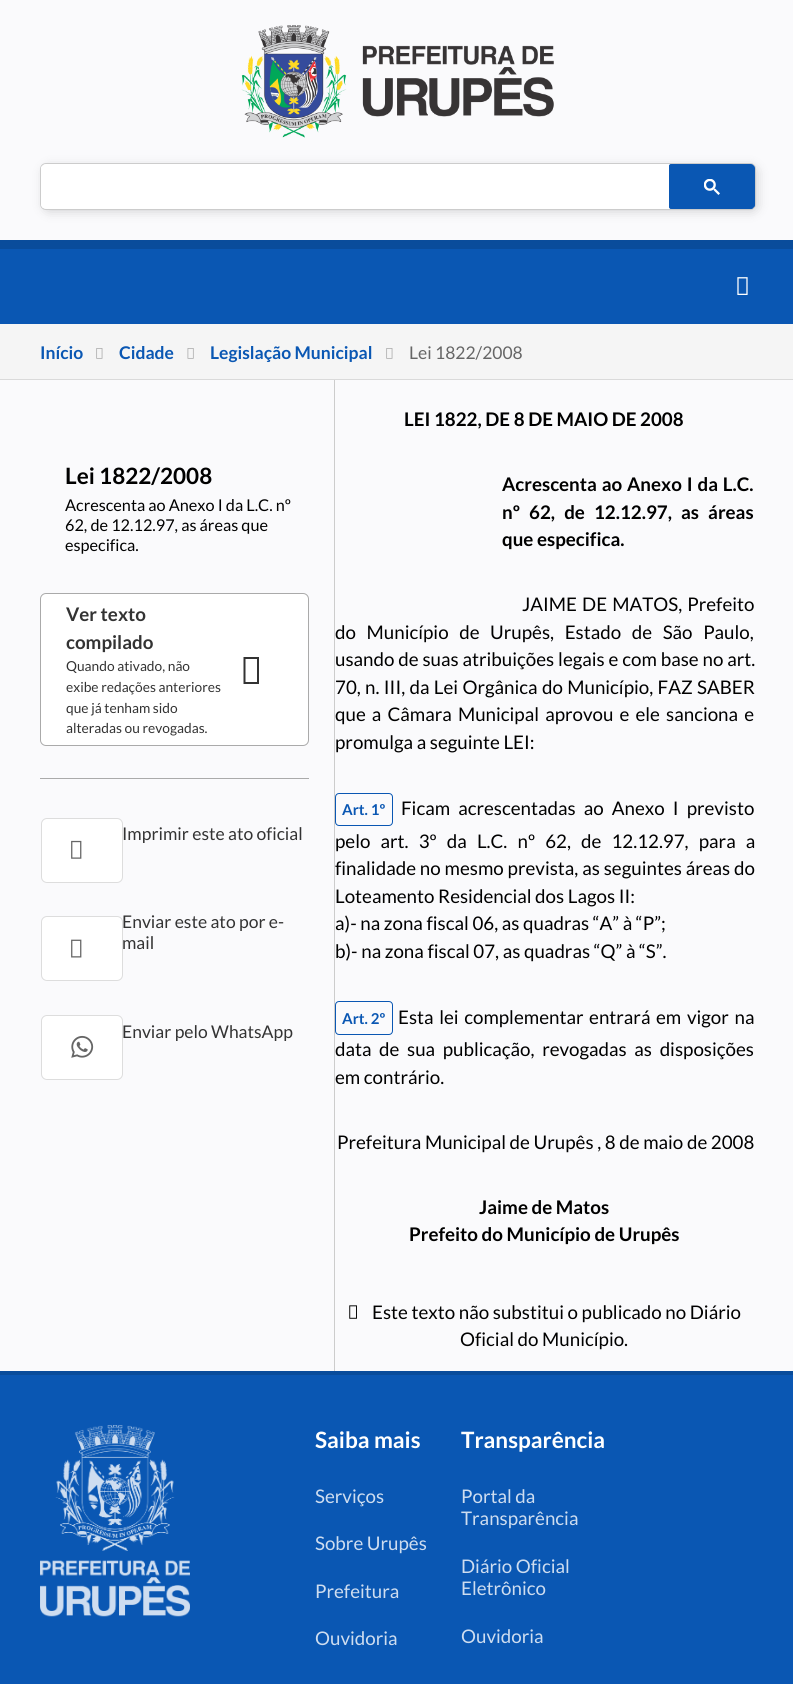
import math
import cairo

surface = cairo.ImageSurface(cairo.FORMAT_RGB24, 793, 1684)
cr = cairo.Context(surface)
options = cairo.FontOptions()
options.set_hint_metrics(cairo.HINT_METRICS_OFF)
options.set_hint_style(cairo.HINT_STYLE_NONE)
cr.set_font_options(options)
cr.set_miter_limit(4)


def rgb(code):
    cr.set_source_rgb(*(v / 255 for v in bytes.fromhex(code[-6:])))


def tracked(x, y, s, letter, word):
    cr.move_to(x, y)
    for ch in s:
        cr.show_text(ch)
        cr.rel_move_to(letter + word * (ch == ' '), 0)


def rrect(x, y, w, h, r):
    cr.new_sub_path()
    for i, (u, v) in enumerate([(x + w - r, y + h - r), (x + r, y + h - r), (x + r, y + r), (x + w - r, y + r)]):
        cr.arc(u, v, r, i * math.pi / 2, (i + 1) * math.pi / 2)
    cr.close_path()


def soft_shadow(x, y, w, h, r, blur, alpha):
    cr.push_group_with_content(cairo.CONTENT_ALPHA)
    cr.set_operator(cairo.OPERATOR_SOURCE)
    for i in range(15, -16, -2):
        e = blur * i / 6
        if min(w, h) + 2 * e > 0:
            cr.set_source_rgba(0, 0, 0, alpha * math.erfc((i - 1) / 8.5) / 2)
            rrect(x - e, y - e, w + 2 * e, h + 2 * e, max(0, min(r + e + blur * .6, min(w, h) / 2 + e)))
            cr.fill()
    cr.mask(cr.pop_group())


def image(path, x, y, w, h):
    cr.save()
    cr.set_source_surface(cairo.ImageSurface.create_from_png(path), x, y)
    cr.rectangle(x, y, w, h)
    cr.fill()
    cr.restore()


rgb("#fafafc")
cr.paint()
image("img/1.png", 241, 25, 313, 113)
rgb("#000000")
soft_shadow(45, 168, 711, 42, 4, 6, 0.2)
rgb("#ffffff")
rrect(40.5, 163.5, 715, 46, 5.5)
cr.fill_preserve()
rgb("#cccccc")
cr.set_line_width(1)
cr.stroke()
cr.save()
rrect(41, 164, 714, 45, 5)
cr.clip()
rgb("#000000")
soft_shadow(46, 169, 709, 40, 4, 6, 0.2)
cr.restore()
cr.save()
rrect(41, 164, 714, 45, 5)
cr.clip()
rgb("#ffffff")
rrect(41, 164, 714, 45, 6)
cr.fill()
cr.rectangle(41, 166, 628, 42)
cr.fill()
cr.restore()
rgb("#0a57b3")
cr.new_path()
cr.move_to(671.5, 164)
cr.line_to(750, 164)
cr.curve_to(753, 164, 755, 166, 755, 169)
cr.line_to(755, 204)
cr.curve_to(755, 207, 753, 209, 750, 209)
cr.line_to(671.5, 209)
cr.curve_to(670, 209, 669, 208, 669, 206.5)
cr.line_to(669, 166.5)
cr.curve_to(669, 165, 670, 164, 671.5, 164)
cr.close_path()
cr.fill()
cr.set_fill_rule(cairo.FILL_RULE_EVEN_ODD)
cr.new_path()
cr.move_to(672, 164)
cr.curve_to(670, 164, 669, 165, 669, 166)
cr.line_to(669, 206)
cr.curve_to(669, 208, 670, 209, 672, 209)
cr.line_to(750, 209)
cr.curve_to(751, 209, 752, 209, 753, 208)
cr.line_to(685, 208)
cr.curve_to(669, 208, 670, 212, 670, 200)
cr.line_to(670, 173)
cr.curve_to(670, 161, 669, 165, 685, 165)
cr.line_to(753, 165)
cr.line_to(750, 164)
cr.close_path()
cr.move_to(755, 169)
cr.line_to(754, 166)
cr.line_to(754, 207)
cr.curve_to(755, 206, 755, 205, 755, 204)
cr.close_path()
cr.fill()
image("img/2.png", 704, 179, 16, 16)
rgb("#094c9b")
cr.rectangle(0, 240, 793, 9)
cr.fill()
rgb("#0a57b3")
cr.rectangle(0, 249, 793, 75)
cr.fill()
image("img/3.png", 737, 277, 11, 18)
rgb("#f5f5f5")
cr.rectangle(0, 324, 793, 55)
cr.fill()
rgb("#dadada")
cr.rectangle(0, 379, 793, 1)
cr.fill()
image("img/4.png", 96, 348, 7, 11)
image("img/5.png", 187, 348, 7, 11)
image("img/4.png", 386, 348, 7, 11)
rgb("#aaaaaa")
cr.rectangle(40, 778, 269, 1)
cr.fill()
rgb("#ffffff")
rrect(40.5, 593.5, 268, 152, 5.5)
cr.fill_preserve()
rgb("#aaaaaa")
cr.stroke()
rgb("#333333")
cr.set_fill_rule(cairo.FILL_RULE_WINDING)
cr.new_path()
cr.move_to(243.5, 684)
cr.line_to(243.5, 657)
cr.line_to(259, 657)
cr.line_to(259, 684)
cr.close_path()
cr.move_to(245.5, 682)
cr.line_to(257, 682)
cr.line_to(257, 659)
cr.line_to(245.5, 659)
cr.close_path()
cr.fill()
rgb("#ffffff")
rrect(41.5, 818.5, 81, 64, 5.5)
cr.fill_preserve()
rgb("#dddddd")
cr.stroke()
image("img/6.png", 71, 840, 11, 19)
rgb("#ffffff")
rrect(41.5, 916.5, 81, 64, 5.5)
cr.fill_preserve()
rgb("#dddddd")
cr.stroke()
image("img/7.png", 71, 939, 11, 19)
rgb("#ffffff")
rrect(41.5, 1015.5, 81, 64, 5.5)
cr.fill_preserve()
rgb("#dddddd")
cr.stroke()
image("img/8.png", 71, 1035, 23, 23)
rrect(335.5, 793.5, 57, 32, 3.5)
rgb("#0a57b3")
cr.stroke()
rrect(335.5, 1001.5, 57, 33, 3.5)
cr.stroke()
image("img/9.png", 349, 1305, 8, 14)
cr.rectangle(0, 1375, 793, 309)
cr.fill()
rgb("#094c9b")
cr.rectangle(0, 1371, 793, 4)
cr.fill()
image("img/10.png", 40, 1425, 150, 192)
cr.select_font_face("Lato", cairo.FONT_SLANT_NORMAL, cairo.FONT_WEIGHT_BOLD)
cr.set_font_size(17.5)
rgb("#0a57b3")
for x, y, s in [
    (40, 359, "Início"),
    (119, 359, "Cidade"),
    (210, 359, "Legislação Municipal"),
]:
    cr.move_to(x, y)
    cr.show_text(s)
cr.select_font_face("Lato")
rgb("#666666")
cr.move_to(409, 359)
cr.show_text("Lei 1822/2008")
cr.select_font_face("Lato", cairo.FONT_SLANT_NORMAL, cairo.FONT_WEIGHT_BOLD)
cr.set_font_size(22.5)
rgb("#000000")
cr.move_to(65, 484)
cr.show_text("Lei 1822/2008")
cr.select_font_face("Lato")
cr.set_font_size(16.25)
for x, y, s in [
    (65, 511, "Acrescenta ao Anexo I da L.C. nº"),
    (65, 531, "62, de 12.12.97, as áreas que"),
    (65, 551, "especifica."),
]:
    cr.move_to(x, y)
    cr.show_text(s)
cr.select_font_face("Lato", cairo.FONT_SLANT_NORMAL, cairo.FONT_WEIGHT_BOLD)
cr.set_font_size(18.75)
rgb("#333333")
cr.move_to(66, 621)
cr.show_text("Ver texto")
cr.move_to(66, 649)
cr.show_text("compilado")
cr.select_font_face("Lato")
cr.set_font_size(13.75)
for x, y, s in [
    (66, 671, "Quando ativado, não"),
    (66, 692, "exibe redações anteriores"),
    (66, 713, "que já tenham sido"),
    (66, 733, "alteradas ou revogadas."),
]:
    cr.move_to(x, y)
    cr.show_text(s)
cr.set_font_size(17.5)
for x, y, s in [
    (122, 840, "Imprimir este ato oficial"),
    (122, 928, "Enviar este ato por e-"),
    (122, 949, "mail"),
    (122, 1038, "Enviar pelo WhatsApp"),
]:
    cr.move_to(x, y)
    cr.show_text(s)
cr.select_font_face("Lato", cairo.FONT_SLANT_NORMAL, cairo.FONT_WEIGHT_BOLD)
cr.set_font_size(18.75)
rgb("#000000")
cr.move_to(404, 426)
cr.show_text("LEI 1822, DE 8 DE MAIO DE 2008")
tracked(502, 491, "Acrescenta ao Anexo I da L.C.", 0, 1.25)
tracked(502, 519, "nº 62, de 12.12.97, as áreas", 0, 5.5)
cr.move_to(502, 546)
cr.show_text("que especifica.")
cr.select_font_face("Lato")
tracked(522, 611, "JAIME DE MATOS, Prefeito", 0, 1.5)
tracked(335, 639, "do Município de Urupês, Estado de São Paulo,", 0, 7)
tracked(335, 666, "usando de suas atribuições legais e com base no art.", 0, 0.25)
tracked(335, 694, "70, n. III, da Lei Orgânica do Município, FAZ SABER", 0, 0.75)
tracked(335, 721, "que a Câmara Municipal aprovou e ele sanciona e", 0, 2.5)
cr.move_to(335, 749)
cr.show_text("promulga a seguinte LEI:")
cr.select_font_face("Lato", cairo.FONT_SLANT_NORMAL, cairo.FONT_WEIGHT_BOLD)
cr.set_font_size(15)
rgb("#0a57b3")
cr.move_to(342, 815)
cr.show_text("Art. 1º")
cr.select_font_face("Lato")
cr.set_font_size(18.75)
rgb("#000000")
tracked(401, 815, "Ficam acrescentadas ao Anexo I previsto", 0, 4.5)
tracked(335, 848, "pelo art. 3º da L.C. nº 62, de 12.12.97, para a", 0, 6.5)
tracked(335, 875, "finalidade no mesmo prevista, as seguintes áreas do", 0, 0.25)
rgb("#cccccc")
cr.rectangle(334, 380, 1, 991)
cr.fill()
rgb("#000000")
for x, y, s in [
    (335, 903, "Loteamento Residencial dos Lagos II:"),
    (335, 930, "a)- na zona fiscal 06, as quadras “A” à “P”;"),
    (335, 958, "b)- na zona fiscal 07, as quadras “Q” à “S”."),
]:
    cr.move_to(x, y)
    cr.show_text(s)
cr.select_font_face("Lato", cairo.FONT_SLANT_NORMAL, cairo.FONT_WEIGHT_BOLD)
cr.set_font_size(15)
rgb("#0a57b3")
cr.move_to(342, 1024)
cr.show_text("Art. 2º")
cr.select_font_face("Lato")
cr.set_font_size(18.75)
rgb("#000000")
tracked(398, 1024, "Esta lei complementar entrará em vigor na", 0, 2)
tracked(335, 1056, "data de sua publicação, revogadas as disposições", 0, 4)
cr.move_to(335, 1084)
cr.show_text("em contrário.")
cr.move_to(337, 1149)
cr.show_text("Prefeitura Municipal de Urupês , 8 de maio de 2008")
cr.select_font_face("Lato", cairo.FONT_SLANT_NORMAL, cairo.FONT_WEIGHT_BOLD)
cr.move_to(479, 1214)
cr.show_text("Jaime de Matos")
cr.move_to(409, 1241)
cr.show_text("Prefeito do Município de Urupês")
cr.select_font_face("Lato")
cr.move_to(372, 1319)
cr.show_text("Este texto não substitui o publicado no Diário")
cr.move_to(460, 1346)
cr.show_text("Oficial do Município.")
cr.select_font_face("Lato", cairo.FONT_SLANT_NORMAL, cairo.FONT_WEIGHT_BOLD)
cr.set_font_size(22.5)
rgb("#ffffff")
cr.move_to(315, 1448)
cr.show_text("Saiba mais")
cr.select_font_face("Lato")
cr.set_font_size(18.75)
rgb("#ceddf0")
for x, y, s in [
    (315, 1503, "Serviços"),
    (315, 1550, "Sobre Urupês"),
    (315, 1598, "Prefeitura"),
    (315, 1645, "Ouvidoria"),
]:
    cr.move_to(x, y)
    cr.show_text(s)
cr.select_font_face("Lato", cairo.FONT_SLANT_NORMAL, cairo.FONT_WEIGHT_BOLD)
cr.set_font_size(22.5)
rgb("#ffffff")
cr.move_to(461, 1448)
cr.show_text("Transparência")
cr.select_font_face("Lato")
cr.set_font_size(18.75)
rgb("#ceddf0")
for x, y, s in [
    (461, 1503, "Portal da"),
    (461, 1525, "Transparência"),
    (461, 1573, "Diário Oficial"),
    (461, 1595, "Eletrônico"),
    (461, 1643, "Ouvidoria"),
]:
    cr.move_to(x, y)
    cr.show_text(s)
surface.write_to_png("page.png")
